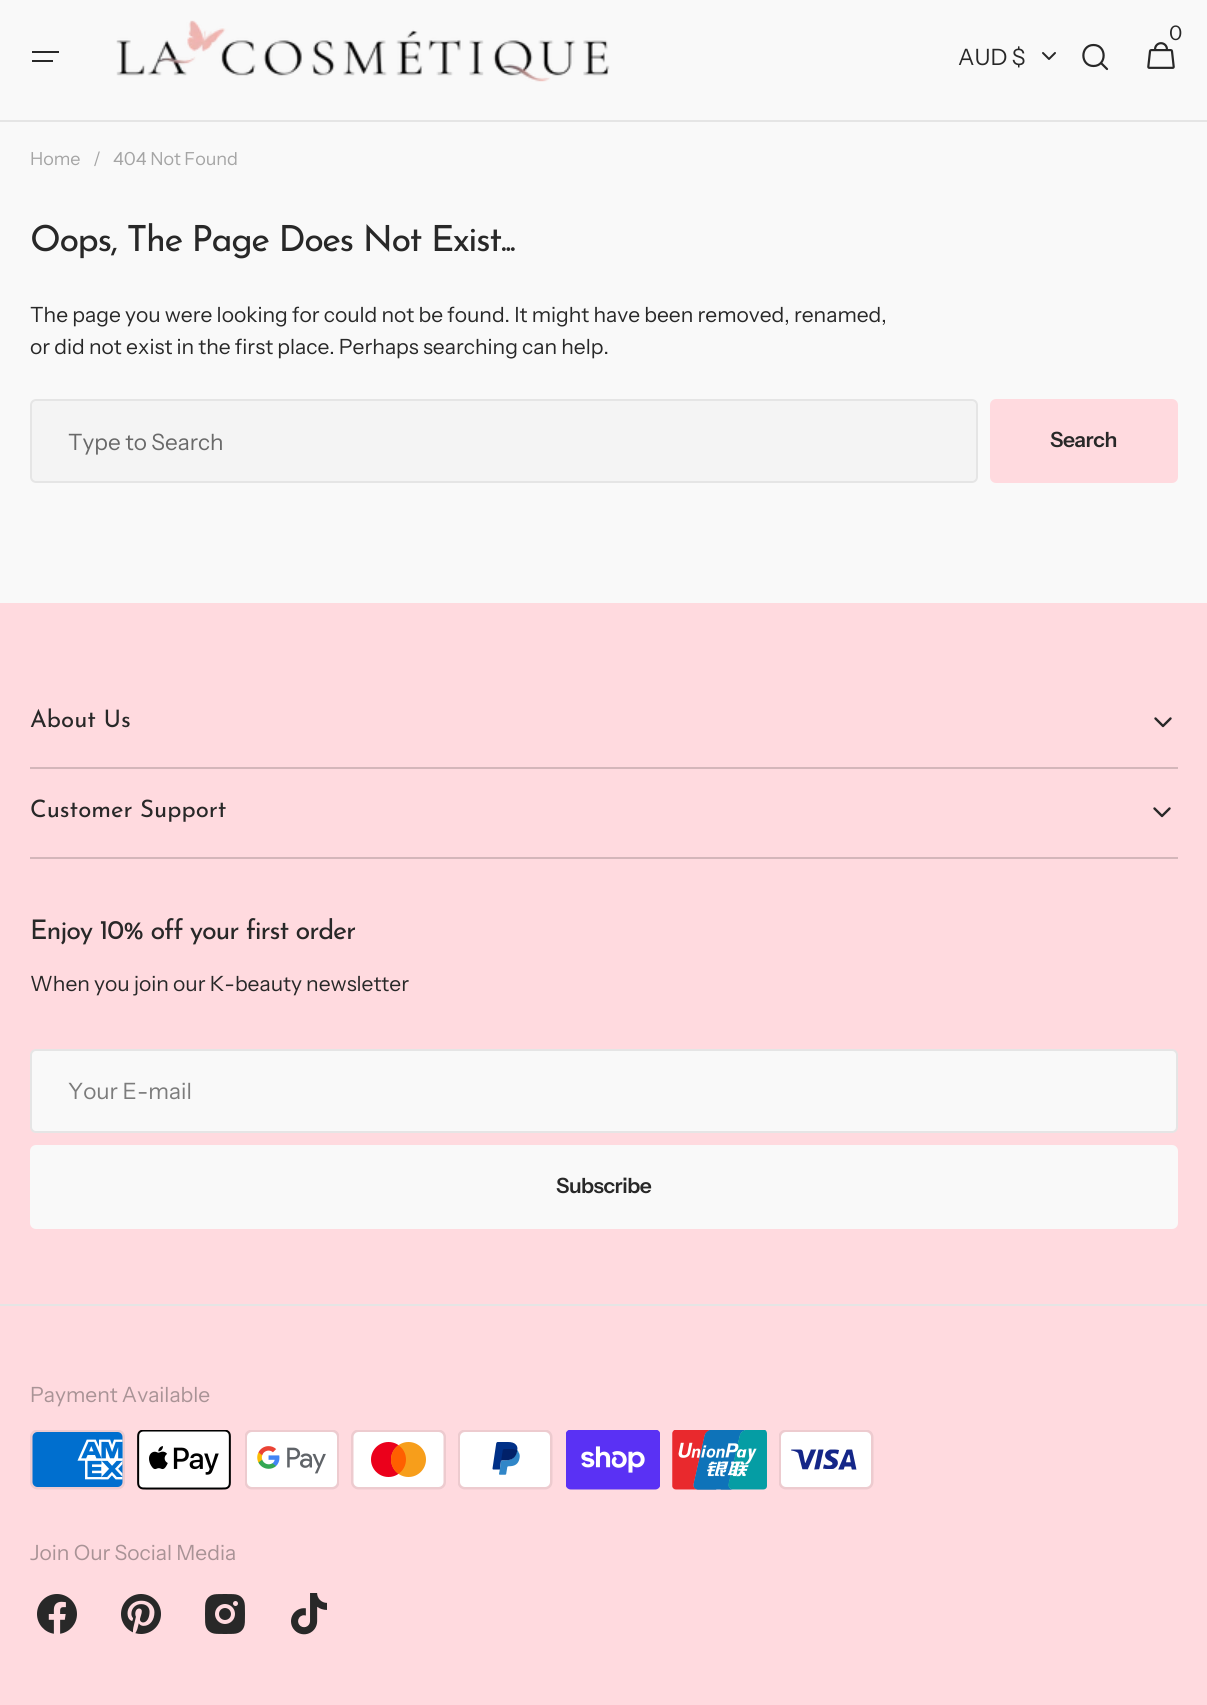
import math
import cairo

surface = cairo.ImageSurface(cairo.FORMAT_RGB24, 1207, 1705)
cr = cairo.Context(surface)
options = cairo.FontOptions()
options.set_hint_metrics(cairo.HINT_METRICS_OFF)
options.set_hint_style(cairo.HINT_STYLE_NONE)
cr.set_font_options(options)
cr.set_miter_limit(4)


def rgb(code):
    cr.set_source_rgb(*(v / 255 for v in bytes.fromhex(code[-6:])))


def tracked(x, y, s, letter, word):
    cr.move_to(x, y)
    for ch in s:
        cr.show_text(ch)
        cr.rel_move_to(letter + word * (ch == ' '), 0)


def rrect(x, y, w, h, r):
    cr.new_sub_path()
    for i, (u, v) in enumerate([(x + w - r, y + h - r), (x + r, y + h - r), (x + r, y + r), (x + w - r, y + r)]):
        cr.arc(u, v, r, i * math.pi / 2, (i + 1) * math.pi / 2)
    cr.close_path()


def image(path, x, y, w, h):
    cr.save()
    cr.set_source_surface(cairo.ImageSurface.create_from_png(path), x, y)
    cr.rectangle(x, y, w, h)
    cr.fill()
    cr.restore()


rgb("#f9f9f9")
cr.paint()
rgb("#282828")
cr.rectangle(32, 51, 27, 2)
cr.fill()
cr.rectangle(32, 60, 21, 2)
cr.fill()
image("img/1.png", 116, 20, 494, 62)
image("img/2.png", 1147, 42, 28, 27)
cr.new_path()
cr.move_to(1055, 53)
cr.line_to(1049, 59)
cr.line_to(1043, 53)
cr.set_line_cap(cairo.LINE_CAP_ROUND)
cr.set_line_join(cairo.LINE_JOIN_ROUND)
cr.stroke()
cr.new_path()
cr.move_to(1093.5, 66)
cr.curve_to(1107, 66, 1107, 45, 1093.5, 45)
cr.curve_to(1080, 45, 1080, 66, 1093.5, 66)
cr.close_path()
cr.move_to(1101, 63)
cr.line_to(1107, 69)
cr.set_line_width(2.2)
cr.stroke()
rgb("#e5e5e5")
cr.rectangle(0, 120, 1207, 2)
cr.fill()
rgb("#f4f4f4")
rrect(31, 400, 946, 82, 5)
cr.fill_preserve()
rgb("#e5e5e5")
cr.set_line_width(2)
cr.set_line_cap(cairo.LINE_CAP_BUTT)
cr.set_line_join(cairo.LINE_JOIN_MITER)
cr.stroke()
rgb("#ffdadf")
rrect(990, 399, 188, 84, 6)
cr.fill()
cr.rectangle(0, 603, 1207, 1102)
cr.fill()
rgb("#d4b6ba")
cr.rectangle(30, 767, 1148, 2)
cr.fill()
cr.new_path()
cr.move_to(1170.5, 718.5)
cr.line_to(1163, 726)
cr.line_to(1155.5, 718.5)
rgb("#282828")
cr.set_line_width(2.4)
cr.set_line_cap(cairo.LINE_CAP_ROUND)
cr.set_line_join(cairo.LINE_JOIN_ROUND)
cr.stroke()
rgb("#d4b6ba")
cr.rectangle(30, 857, 1148, 2)
cr.fill()
cr.new_path()
cr.move_to(1169.5, 808.5)
cr.line_to(1162, 816)
cr.line_to(1154.5, 808.5)
rgb("#282828")
cr.stroke()
rgb("#f9f9f9")
rrect(31, 1050, 1146, 82, 5)
cr.fill_preserve()
rgb("#e5e5e5")
cr.set_line_width(2)
cr.set_line_cap(cairo.LINE_CAP_BUTT)
cr.set_line_join(cairo.LINE_JOIN_MITER)
cr.stroke()
rgb("#f9f9f9")
rrect(30, 1145, 1148, 84, 6)
cr.fill()
rgb("#e5e5e5")
cr.rectangle(0, 1304, 1207, 2)
cr.fill()
image("img/3.png", 30, 1430, 95, 60)
image("img/4.png", 137, 1430, 94, 60)
image("img/5.png", 245, 1430, 94, 60)
image("img/6.png", 351, 1430, 95, 60)
image("img/7.png", 458, 1430, 95, 60)
image("img/8.png", 566, 1430, 94, 60)
image("img/9.png", 672, 1430, 95, 60)
image("img/10.png", 779, 1430, 95, 60)
image("img/11.png", 37, 1594, 40, 40)
image("img/12.png", 121, 1594, 40, 40)
image("img/13.png", 205, 1594, 40, 40)
image("img/14.png", 291, 1593, 36, 42)
cr.select_font_face("Instrument Sans")
cr.set_font_size(20)
rgb("#282828")
cr.move_to(1169, 40)
cr.show_text("0")
cr.set_font_size(22.5)
cr.move_to(958, 65)
cr.show_text("AUD $")
cr.set_font_size(18)
rgb("#a5a5a5")
for x, y, s in [
    (30, 165, "Home"),
    (93, 165, "/"),
    (113, 165, "404 Not Found"),
]:
    cr.move_to(x, y)
    cr.show_text(s)
cr.select_font_face("Josefin Sans")
cr.set_font_size(36)
rgb("#282828")
tracked(30, 251, "Oops, The Page Does Not Exist...", -1.45, 0)
cr.select_font_face("Instrument Sans")
cr.set_font_size(21)
cr.move_to(30, 322)
cr.show_text("The page you were looking for could not be found. It might have been removed, renamed,")
cr.move_to(30, 354)
cr.show_text("or did not exist in the first place. Perhaps searching can help.")
cr.set_font_size(22.5)
rgb("#696969")
cr.move_to(68, 450)
cr.show_text("Type to Search")
cr.select_font_face("Instrument Sans SemiBold")
cr.set_font_size(21)
rgb("#282828")
tracked(1050, 447, "Search", -0.5, 0)
cr.select_font_face("Josefin Sans")
cr.set_font_size(24)
cr.move_to(30, 727)
cr.show_text("About Us")
cr.move_to(30, 817)
cr.show_text("Customer Support")
cr.set_font_size(27)
tracked(30, 939, "Enjoy 10% off your first order", -1.1, 0)
cr.select_font_face("Instrument Sans")
cr.set_font_size(21)
cr.move_to(30, 991)
cr.show_text("When you join our K-beauty newsletter")
cr.set_font_size(22.5)
rgb("#7c7c7c")
cr.move_to(68, 1099)
cr.show_text("Your E-mail")
cr.select_font_face("Instrument Sans SemiBold")
cr.set_font_size(21)
rgb("#282828")
tracked(556, 1193, "Subscribe", -0.5, 0)
cr.select_font_face("Instrument Sans")
rgb("#a99396")
cr.move_to(30, 1402)
cr.show_text("Payment Available")
cr.move_to(30, 1560)
cr.show_text("Join Our Social Media")
surface.write_to_png("page.png")
